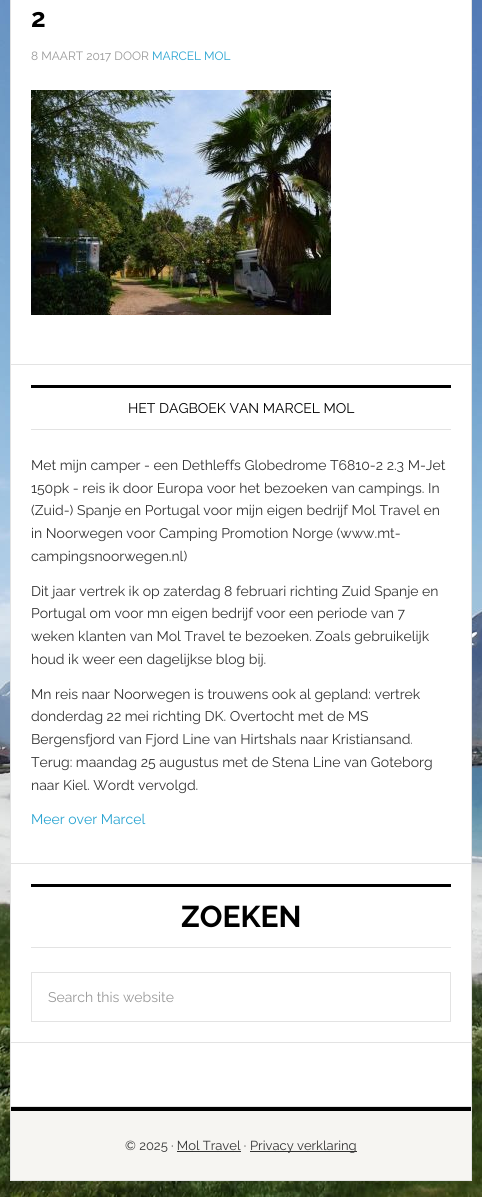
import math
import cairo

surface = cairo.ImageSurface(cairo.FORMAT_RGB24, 482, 1197)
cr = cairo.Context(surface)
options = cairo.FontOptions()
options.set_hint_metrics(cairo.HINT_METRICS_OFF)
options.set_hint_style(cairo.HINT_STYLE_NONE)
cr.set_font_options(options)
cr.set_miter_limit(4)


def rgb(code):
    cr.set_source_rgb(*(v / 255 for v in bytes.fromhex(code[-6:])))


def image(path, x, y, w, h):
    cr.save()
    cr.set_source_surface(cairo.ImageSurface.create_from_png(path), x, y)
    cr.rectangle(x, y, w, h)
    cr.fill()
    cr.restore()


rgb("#ffffff")
cr.paint()
image("img/1.png", 0, 0, 482, 1197)
rgb("#ffffff")
cr.rectangle(11, 0, 460, 1106)
cr.fill()
cr.rectangle(10.5, -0.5, 461, 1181)
rgb("#e3e3e3")
cr.set_line_width(1)
cr.stroke()
rgb("#000000")
cr.rectangle(11, 1107, 460, 4)
cr.fill()
rgb("#e3e3e3")
cr.rectangle(11, 364, 460, 1)
cr.fill()
image("img/2.png", 31, 90, 300, 225)
for x, y, w, h, color in [
    (11, 863, 460, 1, "#e3e3e3"),
    (31, 385, 420, 3, "#000000"),
    (31, 429, 420, 1, "#e3e3e3"),
    (11, 1042, 460, 1, "#e3e3e3"),
    (31, 884, 420, 3, "#000000"),
    (31, 947, 420, 1, "#e3e3e3"),
]:
    rgb(color)
    cr.rectangle(x, y, w, h)
    cr.fill()
cr.rectangle(31.5, 972.5, 419, 49)
cr.stroke()
for x, y, w, h, color in [
    (11, 1106, 460, 1, "#e3e3e3"),
    (11, 1111, 460, 69, "#f6f5f2"),
    (250, 1151, 107, 1, "#333333"),
    (177, 1151, 64, 1, "#333333"),
]:
    rgb(color)
    cr.rectangle(x, y, w, h)
    cr.fill()
cr.select_font_face("Raleway", cairo.FONT_SLANT_NORMAL, cairo.FONT_WEIGHT_BOLD)
cr.set_font_size(26)
rgb("#000000")
cr.move_to(31, 27)
cr.show_text("2")
cr.select_font_face("Raleway")
cr.set_font_size(12)
rgb("#999999")
cr.move_to(31, 60)
cr.show_text("8 MAART 2017 DOOR")
rgb("#27a3d1")
cr.move_to(152, 60)
cr.show_text("MARCEL MOL")
cr.set_font_size(14)
rgb("#000000")
cr.move_to(128, 413)
cr.show_text("HET DAGBOEK VAN MARCEL MOL")
rgb("#333333")
for x, y, s in [
    (31, 470, "Met mijn camper - een Dethleffs Globedrome T6810-2 2.3 M-Jet"),
    (31, 493, "150pk - reis ik door Europa voor het bezoeken van campings. In"),
    (31, 515, "(Zuid-) Spanje en Portugal voor mijn eigen bedrijf Mol Travel en"),
    (31, 538, "in Noorwegen voor Camping Promotion Norge (www.mt-"),
    (31, 561, "campingsnoorwegen.nl)"),
    (31, 596, "Dit jaar vertrek ik op zaterdag 8 februari richting Zuid Spanje en"),
    (31, 618, "Portugal om voor mn eigen bedrijf voor een periode van 7"),
    (31, 641, "weken klanten van Mol Travel te bezoeken. Zoals gebruikelijk"),
    (31, 664, "houd ik weer een dagelijkse blog bij."),
    (31, 699, "Mn reis naar Noorwegen is trouwens ook al gepland: vertrek"),
    (31, 721, "donderdag 22 mei richting DK. Overtocht met de MS"),
    (31, 744, "Bergensfjord van Fjord Line van Hirtshals naar Kristiansand."),
    (31, 767, "Terug: maandag 25 augustus met de Stena Line van Goteborg"),
    (31, 790, "naar Kiel. Wordt vervolgd."),
]:
    cr.move_to(x, y)
    cr.show_text(s)
rgb("#27a3d1")
cr.move_to(31, 824)
cr.show_text("Meer over Marcel")
cr.select_font_face("Raleway", cairo.FONT_SLANT_NORMAL, cairo.FONT_WEIGHT_BOLD)
cr.set_font_size(30)
rgb("#000000")
cr.move_to(181, 927)
cr.show_text("ZOEKEN")
cr.select_font_face("Raleway")
cr.set_font_size(14)
rgb("#999999")
cr.move_to(48, 1002)
cr.show_text("Search this website")
cr.set_font_size(13)
rgb("#333333")
cr.move_to(125, 1150)
cr.show_text("© 2025 · Mol Travel ·")
cr.move_to(250, 1150)
cr.show_text("Privacy verklaring")
surface.write_to_png("page.png")
